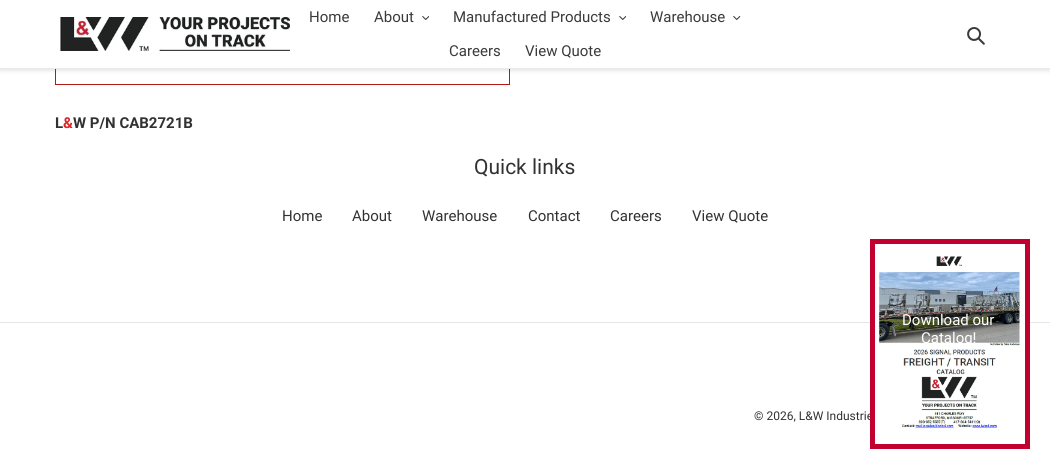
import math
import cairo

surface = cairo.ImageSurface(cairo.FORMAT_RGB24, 1050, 462)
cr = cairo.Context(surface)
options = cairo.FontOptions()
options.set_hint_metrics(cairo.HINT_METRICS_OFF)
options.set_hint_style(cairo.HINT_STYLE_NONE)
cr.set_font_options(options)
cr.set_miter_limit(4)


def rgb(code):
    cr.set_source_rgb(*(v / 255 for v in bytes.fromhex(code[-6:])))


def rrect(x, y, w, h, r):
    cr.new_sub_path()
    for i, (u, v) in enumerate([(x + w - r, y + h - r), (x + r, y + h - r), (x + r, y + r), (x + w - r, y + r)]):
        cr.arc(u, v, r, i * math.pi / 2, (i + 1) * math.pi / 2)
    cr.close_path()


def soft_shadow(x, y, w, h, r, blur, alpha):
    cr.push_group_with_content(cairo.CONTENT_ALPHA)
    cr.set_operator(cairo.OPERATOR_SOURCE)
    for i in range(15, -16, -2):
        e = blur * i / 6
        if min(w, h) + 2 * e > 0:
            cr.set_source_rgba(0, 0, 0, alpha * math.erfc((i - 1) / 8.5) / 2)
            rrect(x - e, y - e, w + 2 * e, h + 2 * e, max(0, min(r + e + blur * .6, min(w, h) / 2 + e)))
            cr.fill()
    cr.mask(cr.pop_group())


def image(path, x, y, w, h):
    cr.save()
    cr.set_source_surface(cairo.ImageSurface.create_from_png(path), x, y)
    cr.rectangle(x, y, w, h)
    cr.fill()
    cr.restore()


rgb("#ffffff")
cr.paint()
for x, y, w, h, color in [
    (509, 69, 1, 16, "#b51717"),
    (55, 84, 455, 1, "#b51717"),
    (55, 69, 1, 16, "#b51717"),
]:
    rgb(color)
    cr.rectangle(x, y, w, h)
    cr.fill()
rgb("#000000")
soft_shadow(0, 2, 1050, 69, 0, 2, 0.1)
rgb("#ffffff")
cr.rectangle(0, 0, 1050, 68)
cr.fill()
rgb("#e8e9eb")
cr.rectangle(0, 68, 1050, 1)
cr.fill()
image("img/1.png", 60, 17, 230, 34)
image("img/2.png", 422, 16, 7, 4)
image("img/2.png", 619, 16, 7, 4)
image("img/3.png", 733, 16, 8, 4)
image("img/4.png", 967, 27, 18, 18)
rgb("#e6e6e6")
cr.rectangle(0, 322, 1050, 1)
cr.fill()
image("img/5.png", 875, 256, 150, 174)
cr.select_font_face("Roboto")
cr.set_font_size(15)
rgb("#3a3a3a")
for x, y, s in [
    (309, 22, "Home"),
    (374, 22, "About"),
    (453, 22, "Manufactured Products"),
    (650, 22, "Warehouse"),
    (449, 56, "Careers"),
    (525, 56, "View Quote"),
]:
    cr.move_to(x, y)
    cr.show_text(s)
cr.select_font_face("Roboto", cairo.FONT_SLANT_NORMAL, cairo.FONT_WEIGHT_BOLD)
rgb("#333232")
cr.move_to(55, 128)
cr.show_text("L")
rgb("#df2626")
cr.move_to(63, 128)
cr.show_text("&")
rgb("#333232")
cr.move_to(73, 128)
cr.show_text("W P/N CAB2721B")
cr.select_font_face("Roboto")
cr.set_font_size(21)
cr.move_to(474, 174)
cr.show_text("Quick links")
cr.set_font_size(15)
for x, y, s in [
    (282, 221, "Home"),
    (352, 221, "About"),
    (422, 221, "Warehouse"),
    (528, 221, "Contact"),
    (610, 221, "Careers"),
    (692, 221, "View Quote"),
]:
    cr.move_to(x, y)
    cr.show_text(s)
cr.set_font_size(12)
cr.move_to(754, 420)
cr.show_text("© 2026, L&W Industrie")
cr.rectangle(872.5, 241.5, 155, 205)
rgb("#c2002f")
cr.set_line_width(5)
cr.stroke()
cr.set_font_size(15)
rgb("#ffffff")
cr.move_to(902, 325)
cr.show_text("Download our")
cr.move_to(921, 343)
cr.show_text("Catalog!")
surface.write_to_png("page.png")
